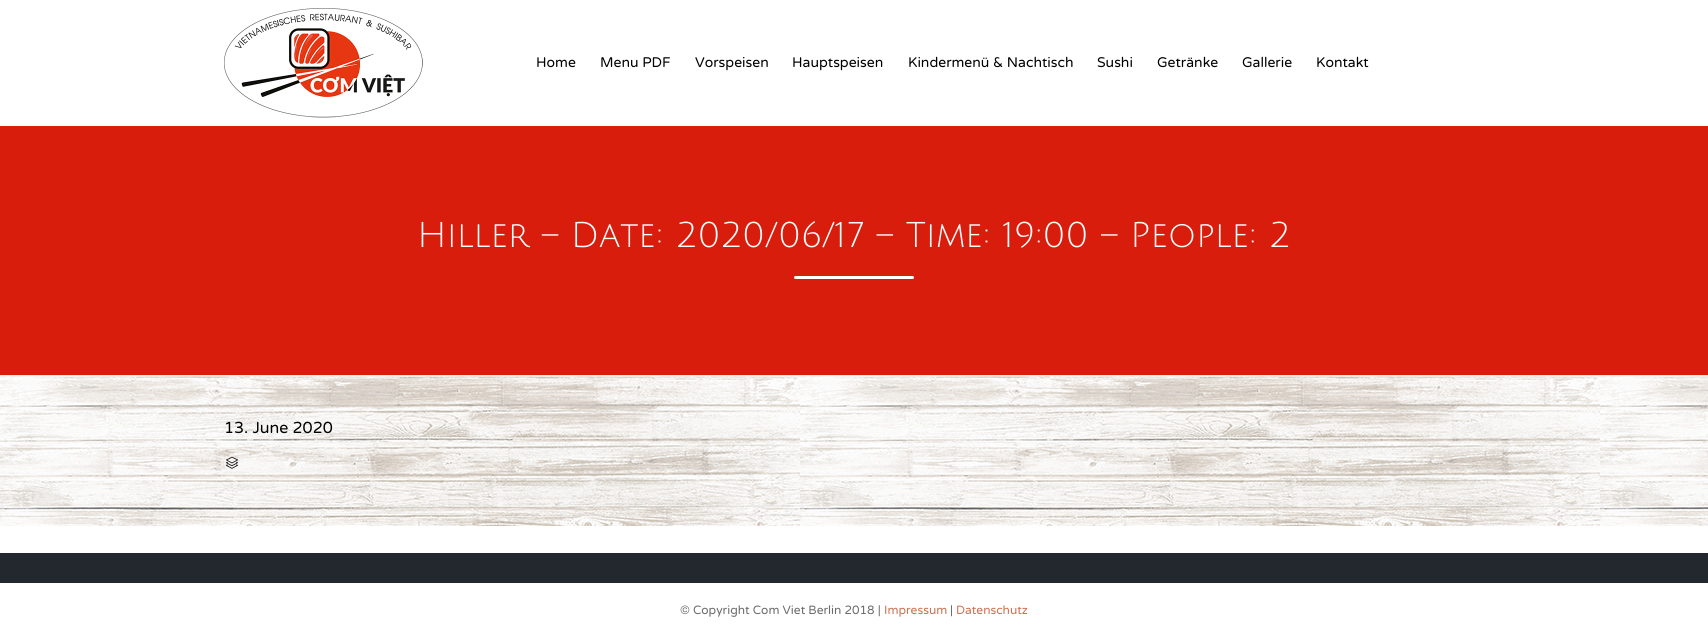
import math
import cairo

surface = cairo.ImageSurface(cairo.FORMAT_RGB24, 1708, 637)
cr = cairo.Context(surface)
options = cairo.FontOptions()
options.set_hint_metrics(cairo.HINT_METRICS_OFF)
options.set_hint_style(cairo.HINT_STYLE_NONE)
cr.set_font_options(options)
cr.set_miter_limit(4)


def rgb(code):
    cr.set_source_rgb(*(v / 255 for v in bytes.fromhex(code[-6:])))


def rrect(x, y, w, h, r):
    cr.new_sub_path()
    for i, (u, v) in enumerate([(x + w - r, y + h - r), (x + r, y + h - r), (x + r, y + r), (x + w - r, y + r)]):
        cr.arc(u, v, r, i * math.pi / 2, (i + 1) * math.pi / 2)
    cr.close_path()


def image(path, x, y, w, h):
    cr.save()
    cr.set_source_surface(cairo.ImageSurface.create_from_png(path), x, y)
    cr.rectangle(x, y, w, h)
    cr.fill()
    cr.restore()


rgb("#ffffff")
cr.paint()
image("img/1.png", 224, 8, 199, 110)
rgb("#d91d0c")
cr.rectangle(0, 126, 1708, 249)
cr.fill()
rgb("#ededed")
cr.rectangle(0, 375, 1708, 1)
cr.fill()
rgb("#ffffff")
rrect(794, 276, 120, 3, 1.5)
cr.fill()
image("img/2.png", 0, 376, 1708, 150)
image("img/3.png", 226, 456, 12, 13)
rgb("#23282f")
cr.rectangle(0, 553, 1708, 30)
cr.fill()
cr.select_font_face("Varela Round")
cr.set_font_size(14)
rgb("#000000")
for x, y, s in [
    (536, 67, "Home"),
    (600, 67, "Menu PDF"),
    (695, 67, "Vorspeisen"),
    (792, 67, "Hauptspeisen"),
    (908, 67, "Kindermenü & Nachtisch"),
    (1097, 67, "Sushi"),
    (1157, 67, "Getränke"),
    (1242, 67, "Gallerie"),
    (1316, 67, "Kontakt"),
]:
    cr.move_to(x, y)
    cr.show_text(s)
cr.select_font_face("Julius Sans One")
cr.set_font_size(35)
rgb("#ffffff")
cr.move_to(417, 247)
cr.show_text("Hiller – Date: 2020/06/17 – Time: 19:00 – People: 2")
cr.select_font_face("Varela Round")
cr.set_font_size(16)
rgb("#000000")
cr.move_to(224, 433)
cr.show_text("13. June 2020")
cr.set_font_size(12)
rgb("#6b6b6b")
cr.move_to(680, 614)
cr.show_text("© Copyright Com Viet Berlin 2018 |")
rgb("#cb7152")
cr.move_to(884, 614)
cr.show_text("Impressum")
rgb("#6b6b6b")
cr.move_to(950, 614)
cr.show_text("|")
rgb("#cb7152")
cr.move_to(956, 614)
cr.show_text("Datenschutz")
surface.write_to_png("page.png")
